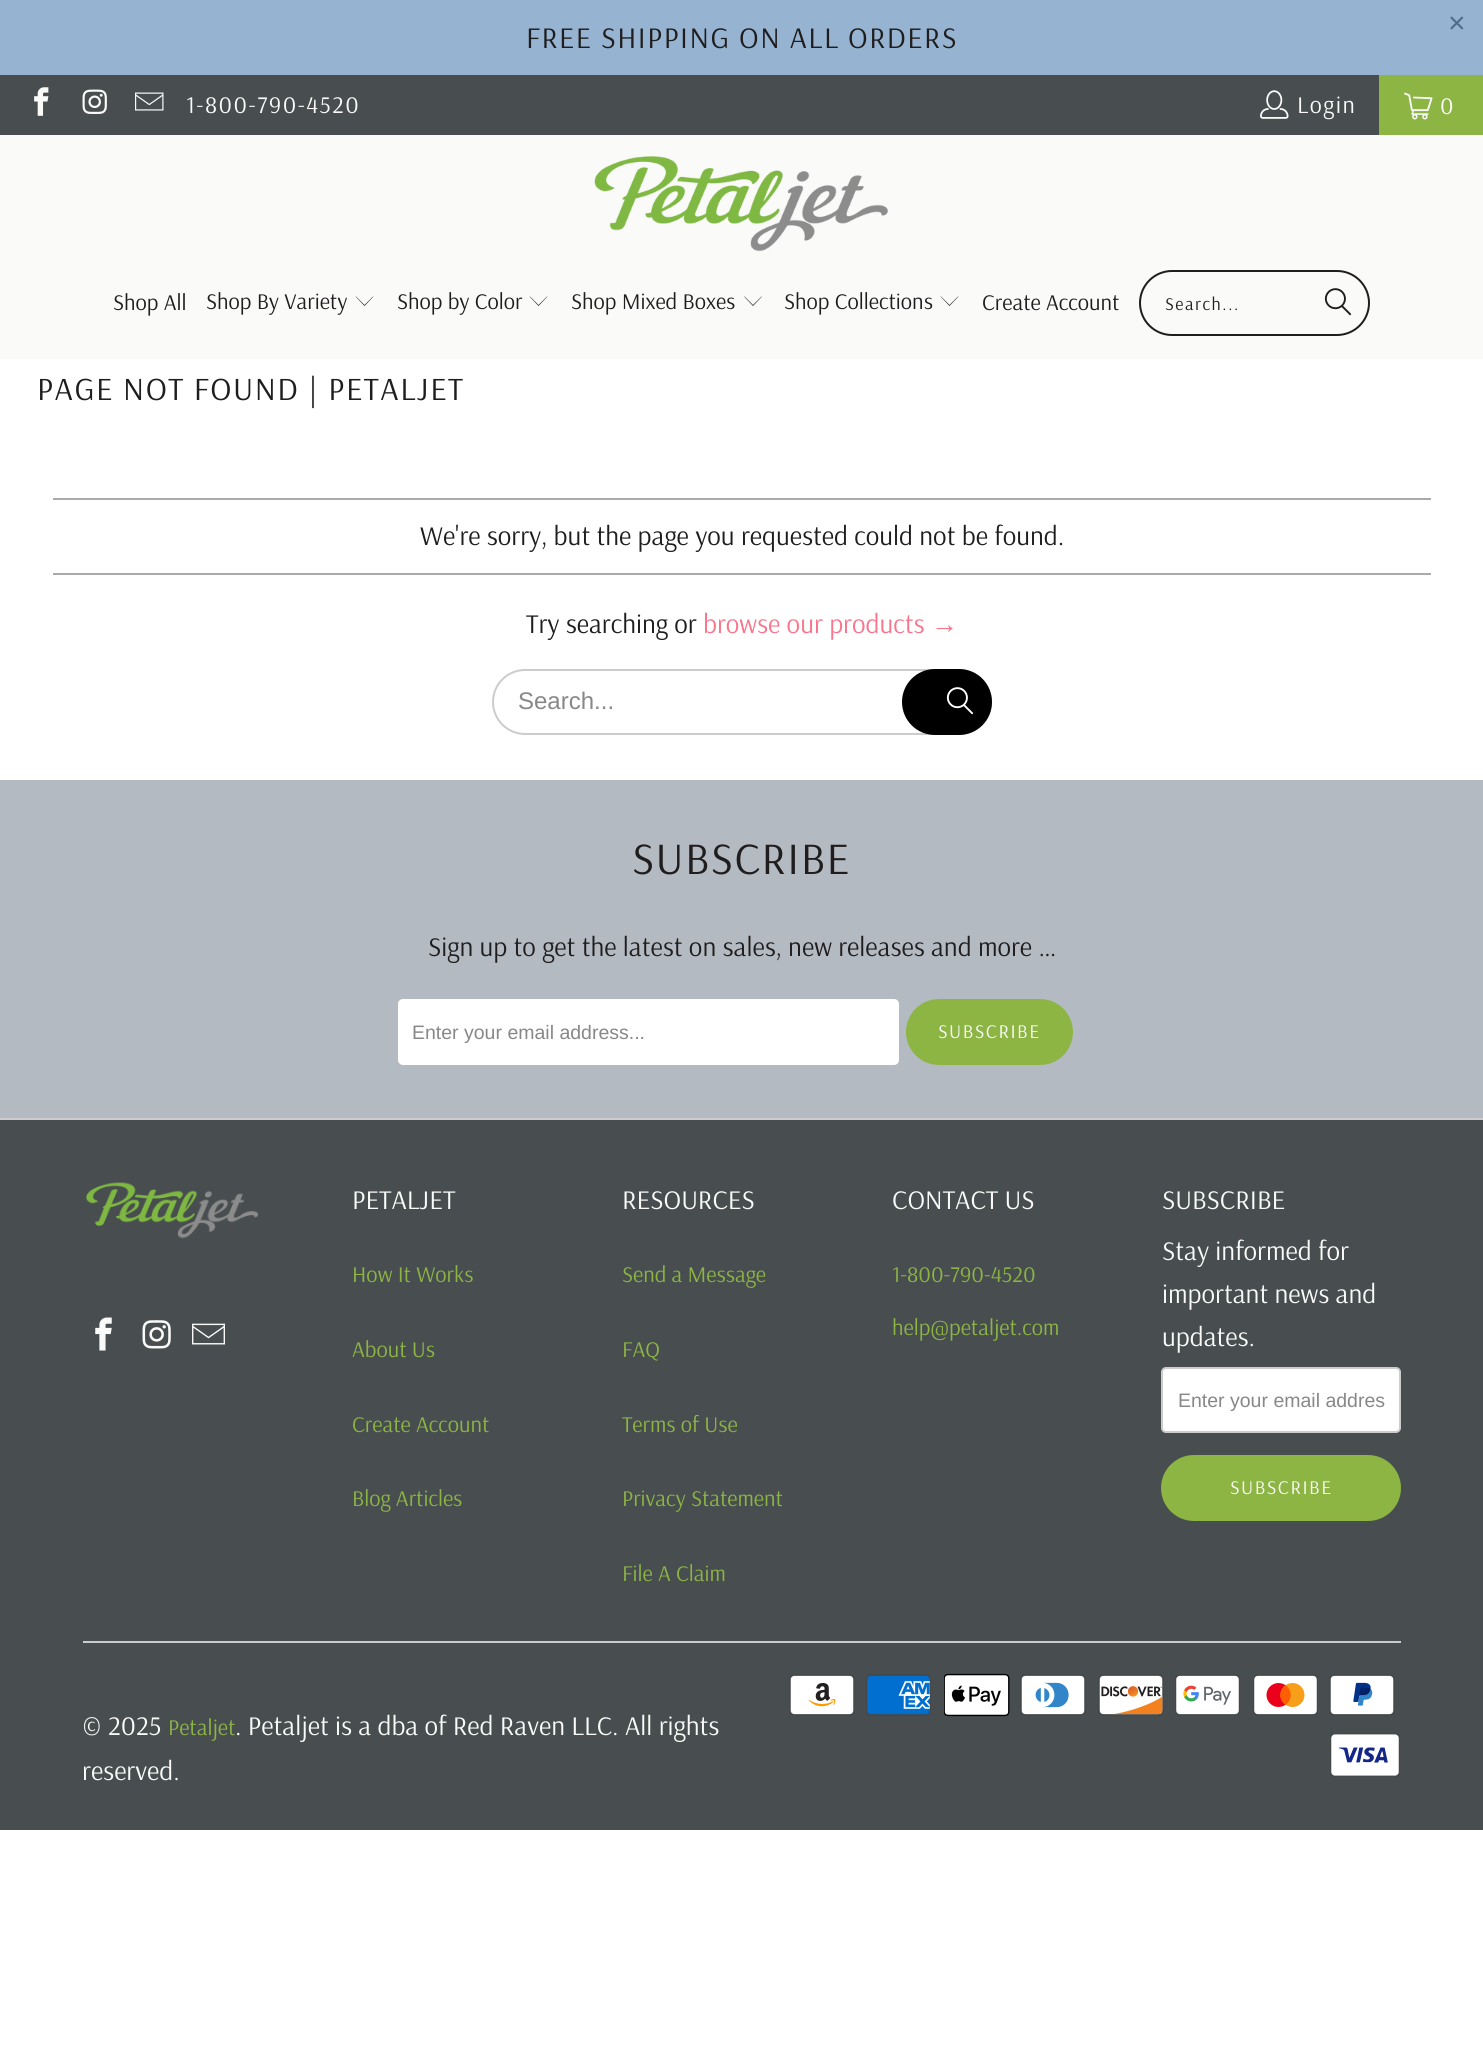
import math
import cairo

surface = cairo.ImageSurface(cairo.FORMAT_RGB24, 1483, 2046)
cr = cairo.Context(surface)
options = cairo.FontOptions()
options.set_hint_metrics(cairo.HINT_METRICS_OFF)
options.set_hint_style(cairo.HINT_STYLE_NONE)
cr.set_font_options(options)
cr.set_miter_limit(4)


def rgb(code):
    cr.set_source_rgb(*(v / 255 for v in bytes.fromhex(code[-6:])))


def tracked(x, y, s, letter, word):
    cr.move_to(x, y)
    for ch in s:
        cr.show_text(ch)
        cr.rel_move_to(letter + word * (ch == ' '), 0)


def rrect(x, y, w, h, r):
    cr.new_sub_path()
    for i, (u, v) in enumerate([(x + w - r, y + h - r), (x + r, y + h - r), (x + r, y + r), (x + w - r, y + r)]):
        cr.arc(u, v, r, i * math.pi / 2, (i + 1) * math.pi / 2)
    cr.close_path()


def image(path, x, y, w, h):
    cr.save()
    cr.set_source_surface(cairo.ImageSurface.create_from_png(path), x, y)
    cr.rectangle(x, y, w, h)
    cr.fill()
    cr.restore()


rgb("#ffffff")
cr.paint()
rgb("#96b4d1")
cr.rectangle(0, 0, 1483, 75)
cr.fill()
rgb("#484e4f")
cr.rectangle(0, 75, 1379, 60)
cr.fill()
image("img/1.png", 34, 87, 15, 29)
image("img/2.png", 82, 89, 25, 25)
image("img/3.png", 135, 92, 29, 19)
image("img/4.png", 1260, 90, 29, 29)
rgb("#8cb544")
cr.rectangle(1379, 75, 104, 60)
cr.fill()
image("img/5.png", 1404, 92, 29, 28)
rgb("#fafaf9")
cr.rectangle(0, 135, 1483, 224)
cr.fill()
image("img/6.png", 594, 156, 294, 96)
rgb("#1f1d1d")
cr.new_path()
cr.move_to(364.5, 306)
cr.line_to(355.5, 296.5)
cr.line_to(356, 296.5)
cr.line_to(364.5, 305)
cr.line_to(373, 296.5)
cr.line_to(373.5, 296.5)
cr.close_path()
cr.fill()
cr.new_path()
cr.move_to(538.5, 306)
cr.line_to(529.5, 296.5)
cr.line_to(530, 296.5)
cr.line_to(538.5, 305)
cr.line_to(547, 296.5)
cr.line_to(547.5, 296.5)
cr.close_path()
cr.fill()
cr.new_path()
cr.move_to(753, 306)
cr.line_to(744, 296.5)
cr.line_to(744.5, 296.5)
cr.line_to(753, 305)
cr.line_to(761.5, 296.5)
cr.line_to(762, 296.5)
cr.close_path()
cr.fill()
cr.new_path()
cr.move_to(949.5, 306)
cr.line_to(940.5, 296.5)
cr.line_to(941, 296.5)
cr.line_to(949.5, 305)
cr.line_to(958, 296.5)
cr.line_to(958.5, 296.5)
cr.close_path()
cr.fill()
rrect(1140, 271, 229, 64, 32)
cr.stroke()
image("img/7.png", 1324, 288, 28, 28)
rgb("#aaaaaa")
cr.rectangle(53, 498, 1378, 2)
cr.fill()
cr.rectangle(53, 573, 1378, 2)
cr.fill()
rrect(493, 670, 498, 64, 32)
rgb("#cccccc")
cr.stroke()
rgb("#000000")
rrect(902, 669, 90, 66, 33)
cr.fill()
image("img/8.png", 946, 687, 28, 28)
rgb("#b4bac1")
cr.rectangle(0, 780, 1483, 338)
cr.fill()
rgb("#ffffff")
rrect(398, 999, 501, 66, 5)
cr.fill()
rgb("#8cb544")
rrect(907, 1000, 165, 64, 32)
cr.fill_preserve()
cr.stroke()
rgb("#484e4f")
cr.rectangle(0, 1120, 1483, 710)
cr.fill()
rgb("#cccccc")
cr.rectangle(0, 1118, 1483, 2)
cr.fill()
image("img/9.png", 86, 1182, 172, 57)
image("img/10.png", 95, 1317, 17, 34)
image("img/11.png", 142, 1320, 29, 29)
image("img/12.png", 192, 1323, 33, 22)
rgb("#ffffff")
rrect(1162, 1368, 238, 64, 4)
cr.fill_preserve()
rgb("#cccccc")
cr.stroke()
rgb("#8cb544")
rrect(1162, 1456, 238, 64, 32)
cr.fill_preserve()
cr.stroke()
rgb("#cccccc")
cr.rectangle(83, 1641, 1318, 2)
cr.fill()
image("img/13.png", 789, 1674, 66, 42)
image("img/14.png", 866, 1674, 65, 42)
image("img/15.png", 944, 1673, 66, 44)
image("img/16.png", 1020, 1674, 66, 42)
image("img/17.png", 1098, 1674, 66, 42)
image("img/18.png", 1175, 1674, 65, 42)
image("img/19.png", 1253, 1674, 65, 42)
image("img/20.png", 1329, 1674, 66, 42)
image("img/21.png", 1330, 1733, 70, 44)
cr.select_font_face("Liberation Sans")
cr.set_font_size(30)
rgb("#4f6c89")
tracked(1448, 33, "×", 1.5, 0)
cr.select_font_face("Arsenal")
rgb("#1f1d1d")
tracked(526, 48, "FREE SHIPPING ON ALL ORDERS", 1.5, 0)
cr.set_font_size(24)
rgb("#fafaf9")
for x, y, s in [
    (186, 113, "1-800-790-4520"),
    (1297, 113, "Login"),
    (1440, 114, "0"),
]:
    tracked(x, y, s, 1.5, 0)
cr.set_font_size(22.5)
rgb("#1f1d1d")
for x, y, s in [
    (113, 310, "Shop All"),
    (206, 309, "Shop By Variety"),
    (397, 309, "Shop by Color"),
    (571, 309, "Shop Mixed Boxes"),
    (784, 309, "Shop Collections"),
    (982, 310, "Create Account"),
]:
    cr.move_to(x, y)
    cr.show_text(s)
cr.set_font_size(18)
tracked(1165, 310, "Search...", 1.5, 0)
cr.set_font_size(32.4)
tracked(37, 400, "PAGE NOT FOUND | PETALJET", 1.5, 0)
cr.set_font_size(27)
cr.move_to(420, 545)
cr.show_text("We're sorry, but the page you requested could not be found.")
cr.move_to(526, 633)
cr.show_text("Try searching or")
rgb("#f9758c")
cr.move_to(703, 633)
cr.show_text("browse our products")
cr.select_font_face("Liberation Sans")
cr.move_to(931, 633)
cr.show_text("→")
cr.set_font_size(24)
rgb("#888888")
cr.move_to(518, 709)
cr.show_text("Search...")
cr.select_font_face("Arsenal")
cr.set_font_size(45)
rgb("#1f1d1d")
tracked(632, 874, "SUBSCRIBE", 1.5, 0)
cr.set_font_size(27)
cr.move_to(428, 956)
cr.show_text("Sign up to get the latest on sales, new releases and more …")
cr.select_font_face("Liberation Sans")
cr.set_font_size(19.5)
rgb("#888888")
cr.move_to(412, 1039)
cr.show_text("Enter your email address...")
cr.select_font_face("Arsenal")
rgb("#fafaf9")
tracked(938, 1038, "SUBSCRIBE", 1.5, 0)
cr.set_font_size(27)
cr.move_to(352, 1209)
cr.show_text("PETALJET")
cr.set_font_size(22.5)
rgb("#8cb544")
for x, y, s in [
    (352, 1282, "How It Works"),
    (352, 1357, "About Us"),
    (352, 1432, "Create Account"),
    (352, 1506, "Blog Articles"),
]:
    cr.move_to(x, y)
    cr.show_text(s)
cr.set_font_size(27)
rgb("#fafaf9")
cr.move_to(622, 1209)
cr.show_text("RESOURCES")
cr.set_font_size(22.5)
rgb("#8cb544")
for x, y, s in [
    (622, 1282, "Send a Message"),
    (622, 1357, "FAQ"),
    (622, 1432, "Terms of Use"),
    (622, 1506, "Privacy Statement"),
    (622, 1581, "File A Claim"),
]:
    cr.move_to(x, y)
    cr.show_text(s)
cr.set_font_size(27)
rgb("#fafaf9")
cr.move_to(892, 1209)
cr.show_text("CONTACT US")
cr.set_font_size(22.5)
rgb("#8cb544")
cr.move_to(892, 1282)
cr.show_text("1-800-790-4520")
cr.move_to(892, 1335)
cr.show_text("help@petaljet.com")
cr.set_font_size(27)
rgb("#fafaf9")
for x, y, s in [
    (1162, 1209, "SUBSCRIBE"),
    (1162, 1260, "Stay informed for"),
    (1162, 1303, "important news and"),
    (1162, 1346, "updates."),
]:
    cr.move_to(x, y)
    cr.show_text(s)
cr.select_font_face("Liberation Sans")
cr.set_font_size(19.5)
rgb("#888888")
cr.move_to(1178, 1407)
cr.show_text("Enter your email addres")
cr.select_font_face("Arsenal")
rgb("#fafaf9")
tracked(1230, 1494, "SUBSCRIBE", 1.5, 0)
cr.set_font_size(27)
cr.move_to(82, 1735)
cr.show_text("© 2025")
cr.set_font_size(22.5)
rgb("#8cb544")
cr.move_to(168, 1735)
cr.show_text("Petaljet")
cr.set_font_size(27)
rgb("#fafaf9")
cr.move_to(235, 1735)
cr.show_text(". Petaljet is a dba of Red Raven LLC. All rights")
cr.move_to(82, 1780)
cr.show_text("reserved.")
surface.write_to_png("page.png")
